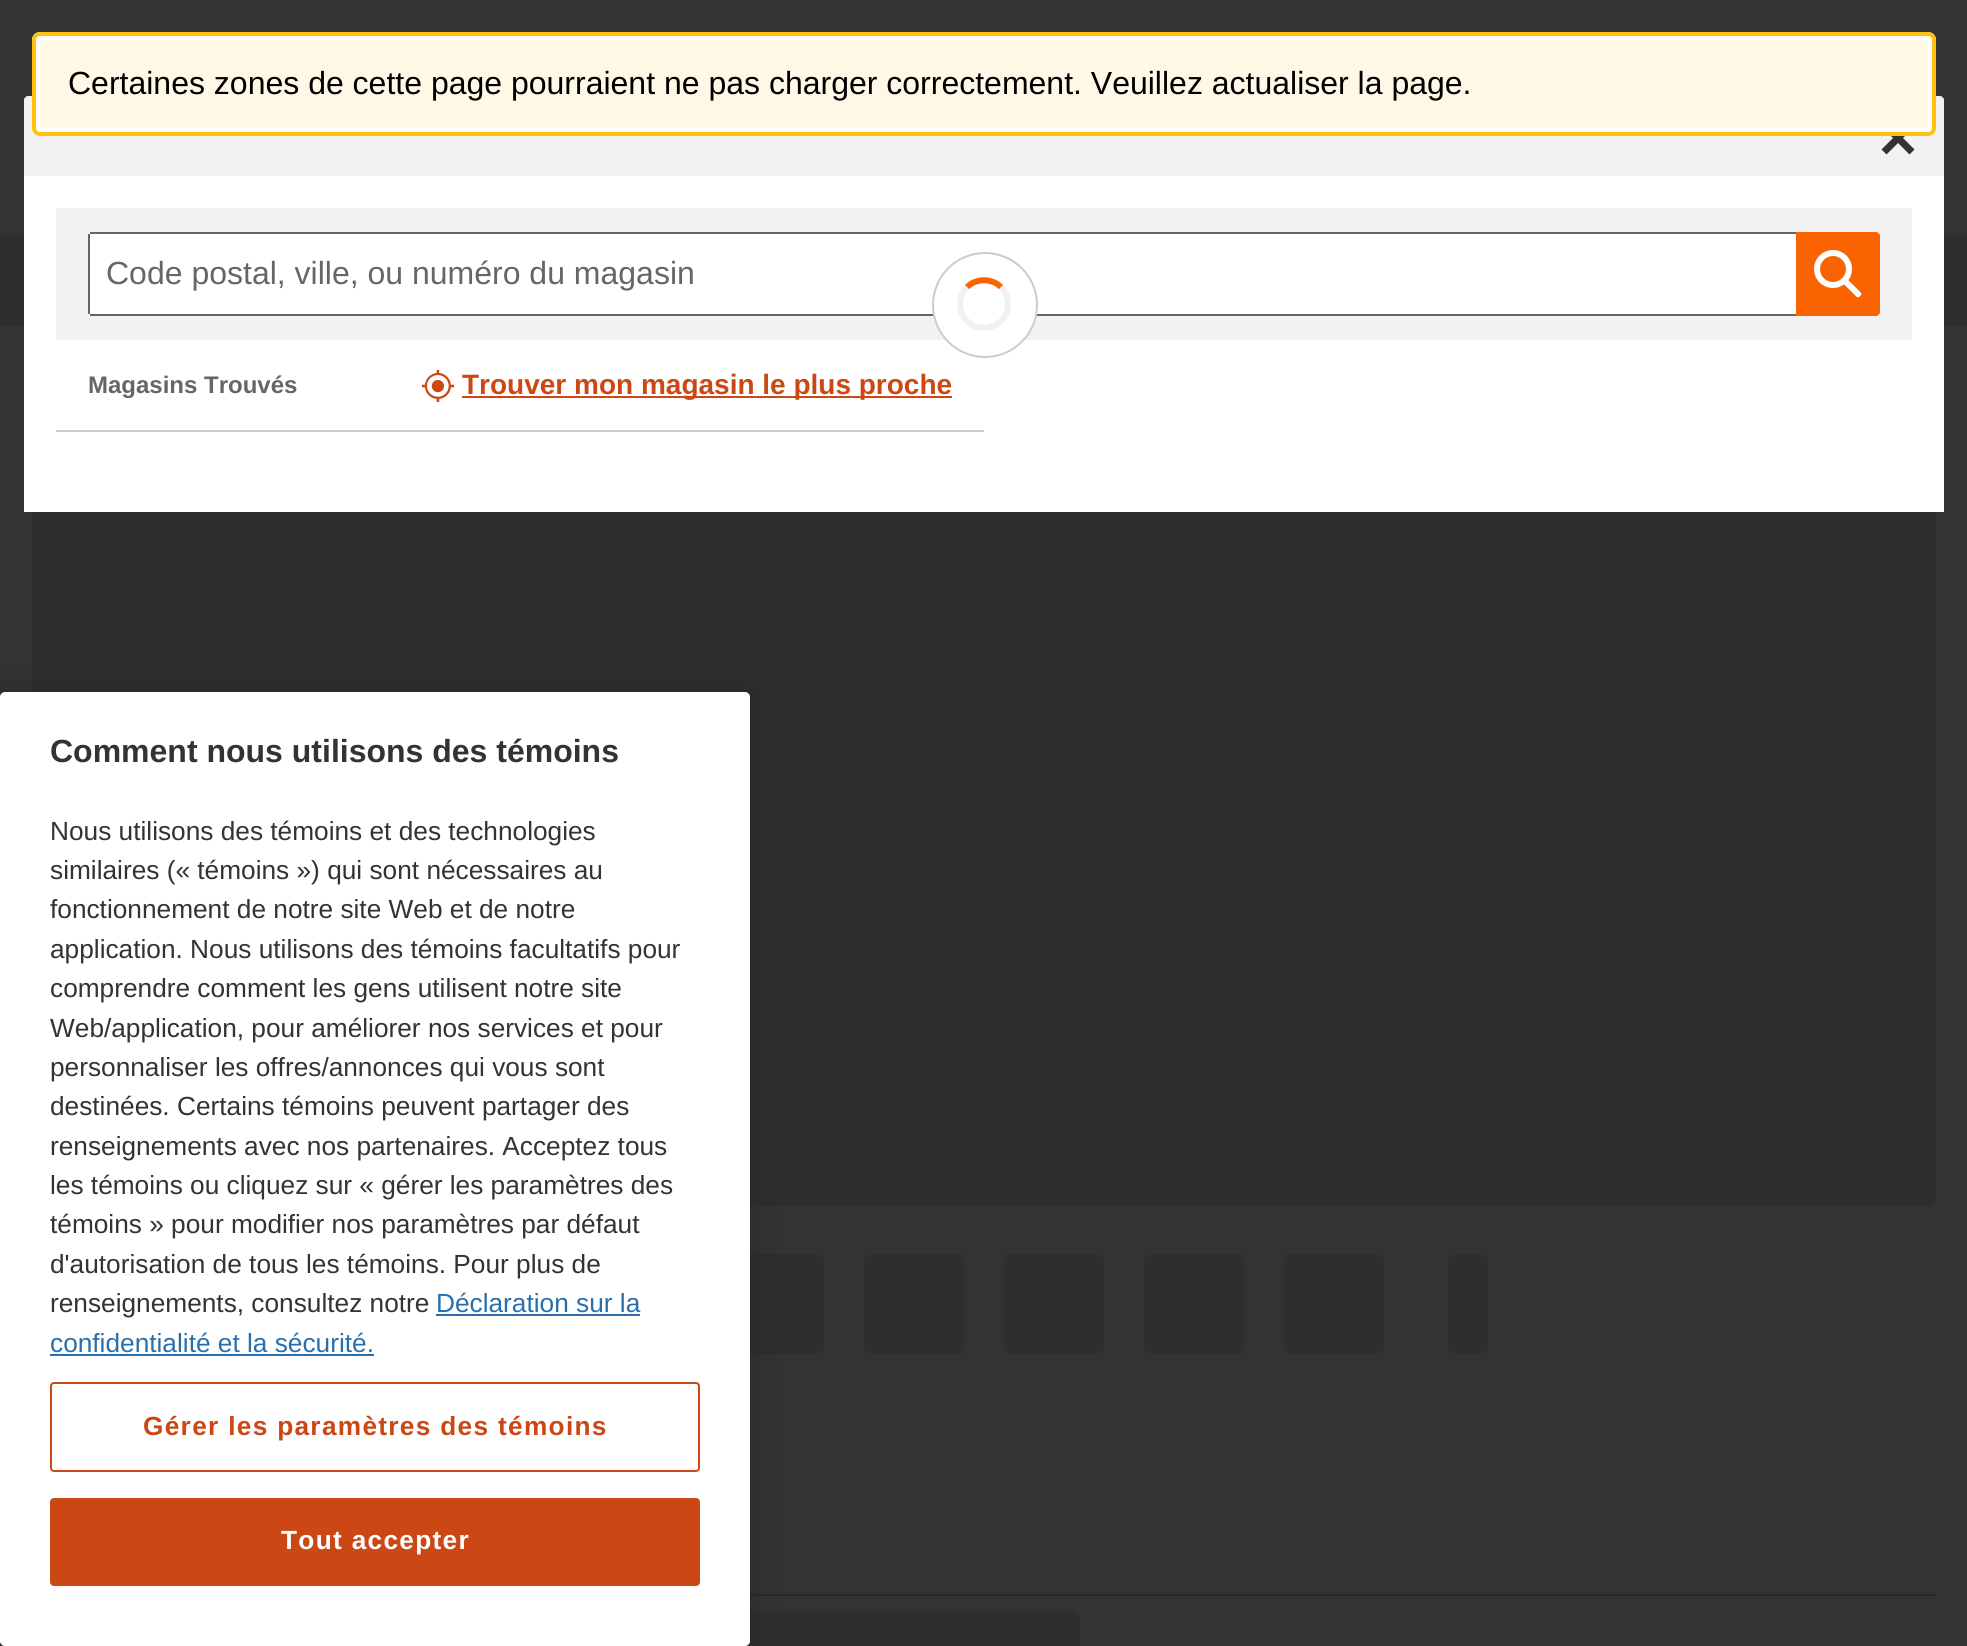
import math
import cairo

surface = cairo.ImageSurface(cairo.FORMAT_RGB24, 1967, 1646)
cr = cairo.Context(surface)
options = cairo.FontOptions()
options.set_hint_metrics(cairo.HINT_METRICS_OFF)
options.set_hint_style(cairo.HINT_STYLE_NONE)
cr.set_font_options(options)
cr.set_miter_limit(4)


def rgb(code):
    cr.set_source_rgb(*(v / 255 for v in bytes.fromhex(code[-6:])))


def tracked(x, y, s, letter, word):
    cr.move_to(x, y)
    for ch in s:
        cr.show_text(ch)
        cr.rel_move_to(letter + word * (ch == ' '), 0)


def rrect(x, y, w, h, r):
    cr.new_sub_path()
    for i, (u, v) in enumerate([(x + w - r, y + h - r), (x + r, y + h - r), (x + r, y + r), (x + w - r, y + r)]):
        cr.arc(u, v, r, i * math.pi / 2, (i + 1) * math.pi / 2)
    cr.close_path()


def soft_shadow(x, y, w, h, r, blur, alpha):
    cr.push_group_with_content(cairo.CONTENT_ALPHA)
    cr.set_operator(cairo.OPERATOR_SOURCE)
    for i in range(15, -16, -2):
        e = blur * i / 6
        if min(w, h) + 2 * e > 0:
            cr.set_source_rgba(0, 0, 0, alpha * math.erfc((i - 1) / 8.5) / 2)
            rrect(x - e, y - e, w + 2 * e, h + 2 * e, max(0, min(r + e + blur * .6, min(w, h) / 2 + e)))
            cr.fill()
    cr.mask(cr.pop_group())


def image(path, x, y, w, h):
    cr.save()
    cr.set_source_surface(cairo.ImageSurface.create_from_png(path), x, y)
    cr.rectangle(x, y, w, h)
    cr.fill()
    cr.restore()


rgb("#333333")
cr.paint()
rgb("#f2f2f2")
cr.new_path()
cr.move_to(28, 96)
cr.line_to(1940, 96)
cr.curve_to(1942, 96, 1944, 98, 1944, 100)
cr.line_to(1944, 176)
cr.line_to(24, 176)
cr.line_to(24, 100)
cr.curve_to(24, 98, 26, 96, 28, 96)
cr.close_path()
cr.fill()
rgb("#333333")
cr.set_fill_rule(cairo.FILL_RULE_EVEN_ODD)
cr.new_path()
cr.move_to(1903, 138)
cr.line_to(1914.5, 126.5)
cr.line_to(1909.5, 121.5)
cr.line_to(1898, 133)
cr.line_to(1886.5, 121.5)
cr.line_to(1881.5, 126.5)
cr.line_to(1893, 138)
cr.line_to(1881.5, 149.5)
cr.line_to(1886.5, 154.5)
cr.line_to(1898, 143)
cr.line_to(1909.5, 154.5)
cr.line_to(1914.5, 149.5)
cr.fill()
rgb("#fff8e6")
rrect(32, 32, 1904, 104, 8)
cr.fill()
rrect(38, 38, 1892, 92, 2)
rgb("#ffffff")
cr.set_line_width(4)
cr.stroke()
rrect(34, 34, 1900, 100, 6)
rgb("#ffc20e")
cr.stroke()
rgb("#2e2e2e")
cr.rectangle(0, 236, 1967, 90)
cr.fill()
rrect(32, 326, 1904, 880, 8)
cr.fill()
rgb("#ffffff")
cr.rectangle(24, 176, 1920, 336)
cr.fill()
rgb("#f2f2f2")
cr.rectangle(56, 208, 1856, 132)
cr.fill()
rgb("#ffffff")
cr.new_path()
cr.move_to(92, 232)
cr.line_to(1796, 232)
cr.line_to(1796, 316)
cr.line_to(92, 316)
cr.curve_to(90, 316, 88, 314, 88, 312)
cr.line_to(88, 236)
cr.curve_to(88, 234, 90, 232, 92, 232)
cr.close_path()
cr.fill()
for x, y, w, h, color in [
    (90, 232, 1706, 2, "#666666"),
    (90, 314, 1706, 2, "#666666"),
    (88, 234, 2, 80, "#666666"),
]:
    rgb(color)
    cr.rectangle(x, y, w, h)
    cr.fill()
rgb("#f96302")
cr.new_path()
cr.move_to(1796, 232)
cr.line_to(1876, 232)
cr.curve_to(1878, 232, 1880, 234, 1880, 236)
cr.line_to(1880, 312)
cr.curve_to(1880, 314, 1878, 316, 1876, 316)
cr.line_to(1796, 316)
cr.close_path()
cr.fill()
image("img/1.png", 1814, 250, 48, 48)
rgb("#ffffff")
cr.arc(985, 305, 52, 0, 2 * math.pi)
cr.fill_preserve()
rgb("#cccccc")
cr.set_line_width(2)
cr.stroke()
cr.new_path()
cr.move_to(967, 287)
cr.curve_to(976.5, 278, 991.5, 278, 1001, 287)
rgb("#f96302")
cr.set_line_width(6)
cr.stroke()
cr.new_path()
cr.move_to(1001, 287)
cr.curve_to(1005.5, 291.5, 1008, 297.5, 1008, 304)
cr.curve_to(1008, 332.5, 966, 337, 960.5, 308.5)
cr.curve_to(959, 301, 961.5, 292.5, 967, 287)
cr.set_source_rgba(0.8, 0.8, 0.8, 0.3)
cr.stroke()
rgb("#cccccc")
cr.rectangle(56, 430, 928, 2)
cr.fill()
image("img/2.png", 422, 370, 32, 32)
rgb("#cb4814")
cr.rectangle(462, 396, 490, 2)
cr.fill()
rgb("#2e2e2e")
rrect(724, 1254, 100, 100, 8)
cr.fill()
rrect(864, 1254, 100, 100, 8)
cr.fill()
rrect(1004, 1254, 100, 100, 8)
cr.fill()
rrect(1144, 1254, 100, 100, 8)
cr.fill()
rrect(1284, 1254, 100, 100, 8)
cr.fill()
rrect(1448, 1254, 40, 100, 8)
cr.fill()
rgb("#292929")
cr.rectangle(750, 1594, 1186, 2)
cr.fill()
rgb("#2e2e2e")
rrect(32, 1612, 1048, 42, 8)
cr.fill()
rgb("#000000")
soft_shadow(0, 692, 750, 954, 5, 18, 0.2)
rgb("#ffffff")
rrect(0, 692, 750, 954, 5)
cr.fill()
rgb("#286fad")
cr.rectangle(436, 1314, 204, 2)
cr.fill()
cr.rectangle(50, 1354, 324, 2)
cr.fill()
rrect(51, 1383, 648, 88, 3)
rgb("#cb4814")
cr.set_line_width(2)
cr.stroke()
rrect(51, 1499, 648, 86, 3)
cr.fill_preserve()
cr.stroke()
cr.select_font_face("Liberation Sans")
cr.set_font_size(32)
rgb("#000000")
cr.move_to(68, 94)
cr.show_text("Certaines zones de cette page pourraient ne pas charger correctement. Veuillez actualiser la page.")
rgb("#666666")
cr.move_to(106, 284)
cr.show_text("Code postal, ville, ou numéro du magasin")
cr.select_font_face("Liberation Sans", cairo.FONT_SLANT_NORMAL, cairo.FONT_WEIGHT_BOLD)
cr.set_font_size(24)
cr.move_to(88, 393)
cr.show_text("Magasins Trouvés")
cr.set_font_size(28)
rgb("#cb4814")
cr.move_to(462, 394)
cr.show_text("Trouver mon magasin le plus proche")
cr.set_font_size(32)
rgb("#333333")
cr.move_to(50, 762)
cr.show_text("Comment nous utilisons des témoins")
cr.select_font_face("Liberation Sans")
cr.set_font_size(26.25)
for x, y, s in [
    (50, 840, "Nous utilisons des témoins et des technologies"),
    (50, 879, "similaires (« témoins ») qui sont nécessaires au"),
    (50, 918, "fonctionnement de notre site Web et de notre"),
    (50, 958, "application. Nous utilisons des témoins facultatifs pour"),
    (50, 997, "comprendre comment les gens utilisent notre site"),
    (50, 1037, "Web/application, pour améliorer nos services et pour"),
    (50, 1076, "personnaliser les offres/annonces qui vous sont"),
    (50, 1115, "destinées. Certains témoins peuvent partager des"),
    (50, 1155, "renseignements avec nos partenaires. Acceptez tous"),
    (50, 1194, "les témoins ou cliquez sur « gérer les paramètres des"),
    (50, 1233, "témoins » pour modifier nos paramètres par défaut"),
    (50, 1273, "d'autorisation de tous les témoins. Pour plus de"),
    (50, 1312, "renseignements, consultez notre"),
]:
    cr.move_to(x, y)
    cr.show_text(s)
rgb("#286fad")
cr.move_to(436, 1312)
cr.show_text("Déclaration sur la")
cr.move_to(50, 1352)
cr.show_text("confidentialité et la sécurité.")
cr.select_font_face("Liberation Sans", cairo.FONT_SLANT_NORMAL, cairo.FONT_WEIGHT_BOLD)
rgb("#cb4814")
tracked(143, 1435, "Gérer les paramètres des témoins", 1.3, 0)
rgb("#ffffff")
tracked(281, 1549, "Tout accepter", 1.3, 0)
surface.write_to_png("page.png")
